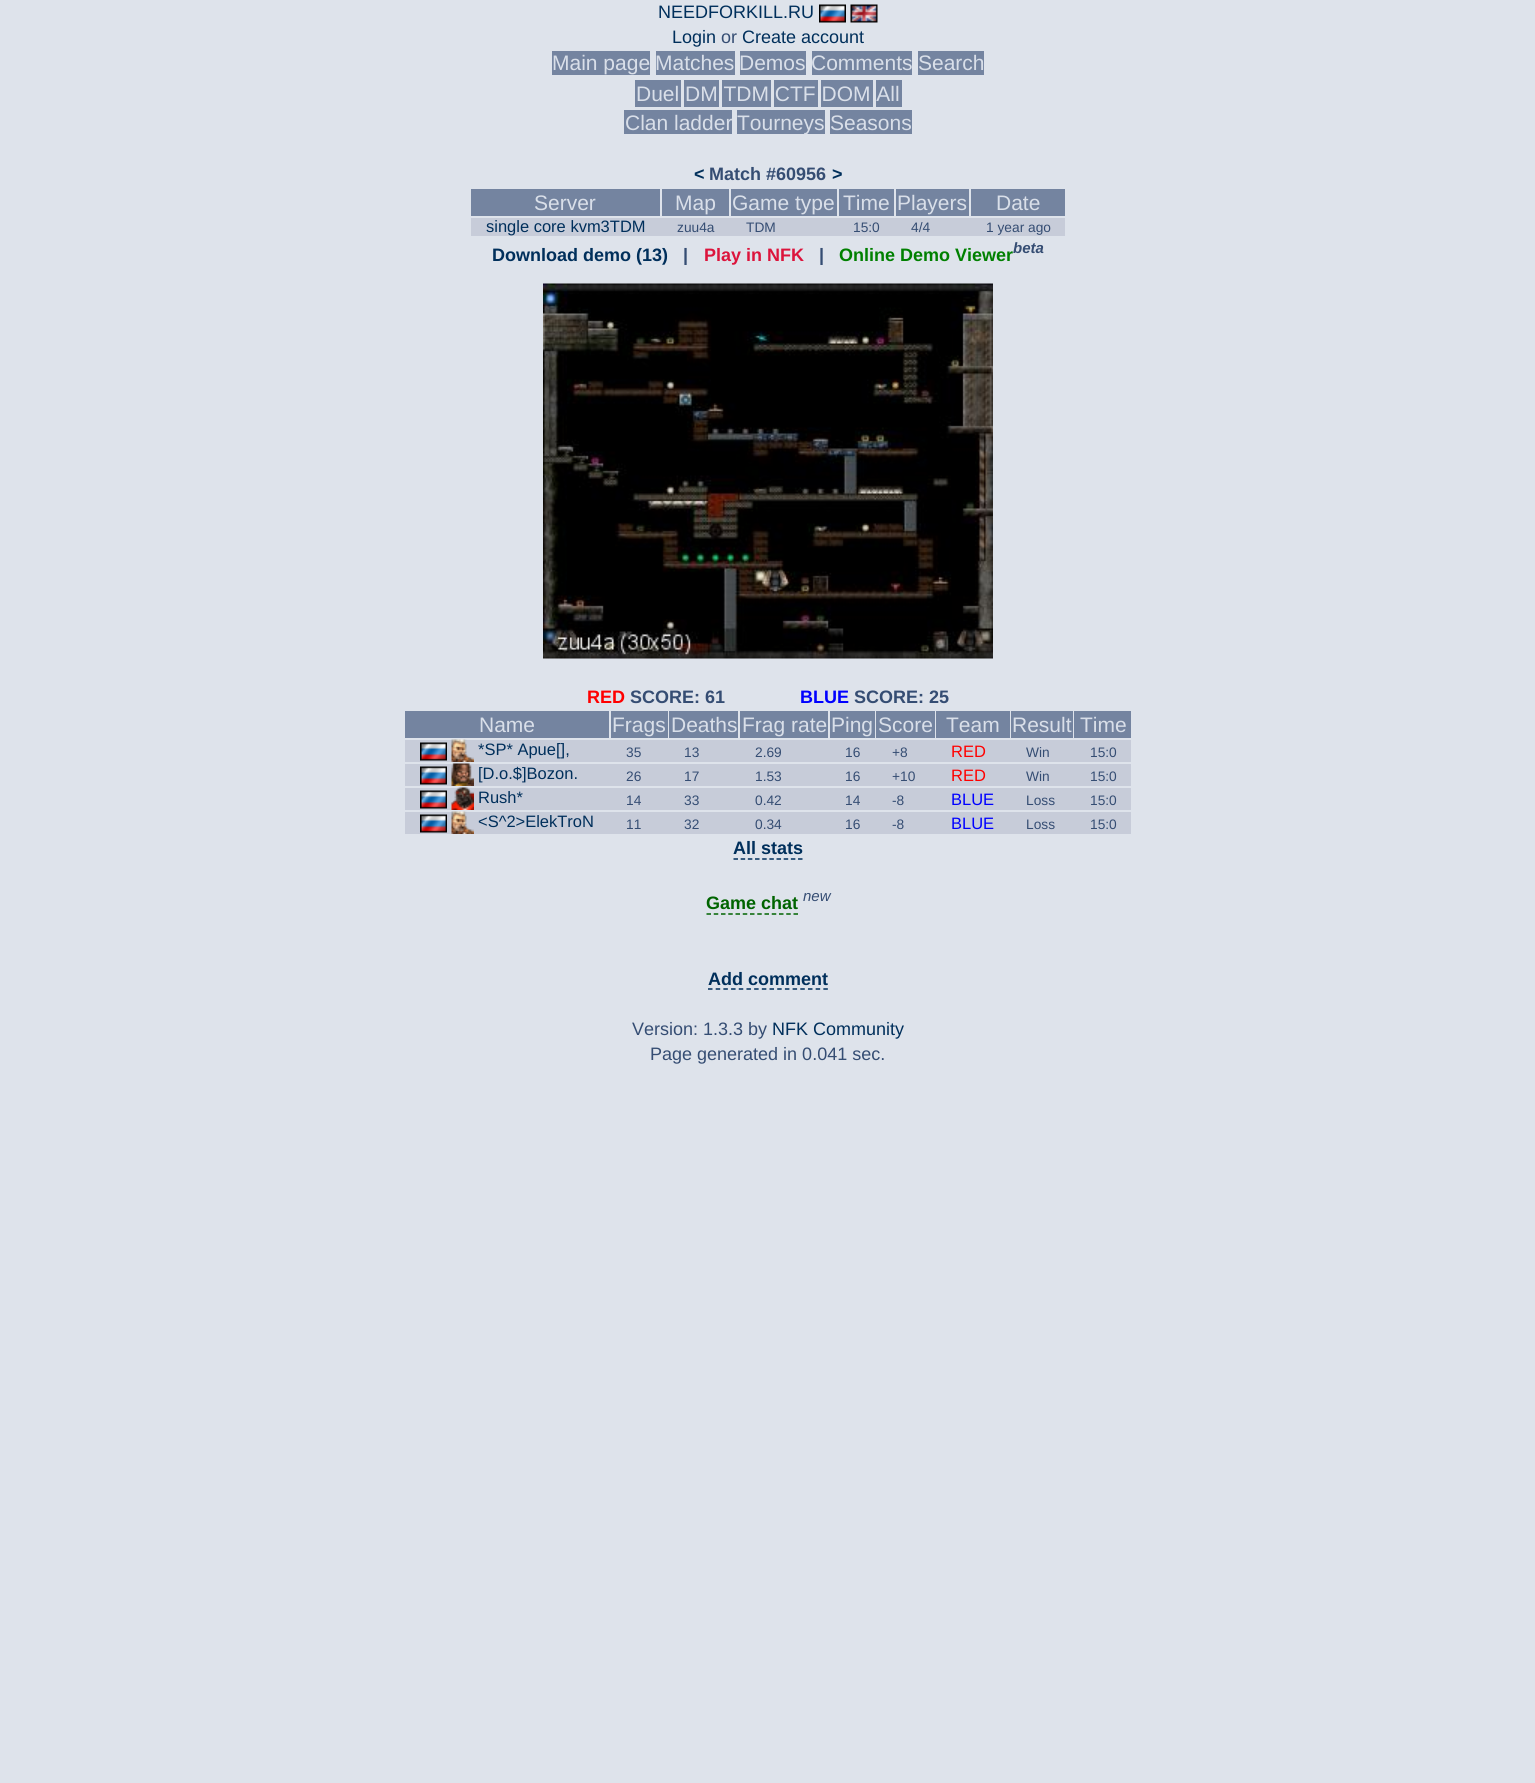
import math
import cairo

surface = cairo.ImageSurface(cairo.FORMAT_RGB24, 1535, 1783)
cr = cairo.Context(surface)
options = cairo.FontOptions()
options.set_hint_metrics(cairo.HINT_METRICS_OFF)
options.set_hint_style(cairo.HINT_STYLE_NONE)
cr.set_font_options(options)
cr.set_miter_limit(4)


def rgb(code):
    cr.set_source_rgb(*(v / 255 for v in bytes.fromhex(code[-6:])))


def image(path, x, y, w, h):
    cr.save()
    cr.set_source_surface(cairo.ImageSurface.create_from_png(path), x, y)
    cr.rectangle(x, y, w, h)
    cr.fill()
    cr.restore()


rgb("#dee3eb")
cr.paint()
image("img/1.png", 819, 4, 27, 19)
image("img/2.png", 850, 4, 28, 19)
for x, y, w, h, color in [
    (552, 51, 98, 24, "#7484a0"),
    (656, 51, 79, 24, "#7484a0"),
    (740, 51, 66, 24, "#7484a0"),
    (812, 51, 100, 24, "#7484a0"),
    (918, 51, 66, 24, "#7484a0"),
    (684, 80, 35, 27, "#7484a0"),
    (722, 80, 49, 27, "#7484a0"),
    (774, 80, 44, 27, "#7484a0"),
    (821, 80, 52, 27, "#7484a0"),
    (876, 80, 26, 27, "#7484a0"),
    (635, 80, 46, 27, "#7484a0"),
    (624, 110, 108, 24, "#7484a0"),
    (737, 110, 88, 24, "#7484a0"),
    (830, 110, 82, 24, "#7484a0"),
    (471, 189, 189, 27, "#7484a0"),
    (662, 189, 67, 27, "#7484a0"),
    (731, 189, 106, 27, "#7484a0"),
    (839, 189, 55, 27, "#7484a0"),
    (896, 189, 73, 27, "#7484a0"),
    (971, 189, 94, 27, "#7484a0"),
    (471, 218, 594, 18, "#c7ccd9"),
]:
    rgb(color)
    cr.rectangle(x, y, w, h)
    cr.fill()
image("img/3.png", 543, 283, 450, 376)
for x, y, w, h, color in [
    (405, 711, 204, 27, "#7484a0"),
    (611, 711, 57, 27, "#7484a0"),
    (669, 711, 69, 27, "#7484a0"),
    (740, 711, 88, 27, "#7484a0"),
    (830, 711, 45, 27, "#7484a0"),
    (876, 711, 59, 27, "#7484a0"),
    (936, 711, 74, 27, "#7484a0"),
    (1011, 711, 62, 27, "#7484a0"),
    (1074, 711, 57, 27, "#7484a0"),
    (405, 740, 726, 22, "#c7ccd9"),
]:
    rgb(color)
    cr.rectangle(x, y, w, h)
    cr.fill()
image("img/4.png", 420, 742, 27, 19)
image("img/5.png", 451, 739, 23, 23)
cr.rectangle(405, 764, 726, 22)
cr.fill()
image("img/4.png", 420, 766, 27, 19)
image("img/6.png", 451, 763, 23, 23)
cr.rectangle(405, 788, 726, 22)
cr.fill()
image("img/4.png", 420, 790, 27, 19)
image("img/7.png", 451, 787, 23, 23)
cr.rectangle(405, 812, 726, 22)
cr.fill()
image("img/4.png", 420, 814, 27, 19)
image("img/5.png", 451, 811, 23, 23)
cr.new_path()
cr.move_to(733.5, 859)
cr.line_to(802.5, 859)
rgb("#002f5b")
cr.set_line_width(1.5)
cr.set_dash([4.5, 2.67])
cr.stroke()
cr.new_path()
cr.move_to(706.5, 914)
cr.line_to(798, 914)
rgb("#006400")
cr.set_dash([4.5, 2.75])
cr.stroke()
cr.new_path()
cr.move_to(708, 989)
cr.line_to(828, 989)
rgb("#002f5b")
cr.set_dash([4.5, 3.19])
cr.stroke()
cr.select_font_face("Liberation Sans")
cr.set_font_size(18)
cr.move_to(658, 18)
cr.show_text("NEEDFORKILL.RU")
cr.move_to(672, 43)
cr.show_text("Login")
rgb("#354d73")
cr.move_to(721, 43)
cr.show_text("or")
rgb("#002f5b")
cr.move_to(742, 43)
cr.show_text("Create account")
cr.set_font_size(21)
rgb("#d9dfe9")
for x, y, s in [
    (552, 70, "Main page"),
    (655, 70, "Matches"),
    (739, 70, "Demos"),
    (811, 70, "Comments"),
    (918, 70, "Search"),
    (636, 101, "Duel DM TDM CTF DOM All"),
    (625, 130, "Clan ladder"),
    (737, 130, "Tourneys"),
    (830, 130, "Seasons"),
]:
    cr.move_to(x, y)
    cr.show_text(s)
cr.select_font_face("Liberation Sans", cairo.FONT_SLANT_NORMAL, cairo.FONT_WEIGHT_BOLD)
cr.set_font_size(18)
rgb("#002f5b")
cr.move_to(694, 180)
cr.show_text("<")
rgb("#354d73")
cr.move_to(709, 180)
cr.show_text("Match #60956")
rgb("#002f5b")
cr.move_to(832, 180)
cr.show_text(">")
cr.select_font_face("Liberation Sans")
cr.set_font_size(21)
rgb("#d9dfe9")
for x, y, s in [
    (534, 210, "Server"),
    (675, 210, "Map"),
    (732, 210, "Game type"),
    (843, 210, "Time"),
    (897, 210, "Players"),
    (996, 210, "Date"),
]:
    cr.move_to(x, y)
    cr.show_text(s)
cr.set_font_size(16.5)
rgb("#002f5b")
cr.move_to(486, 232)
cr.show_text("single core kvm3TDM")
cr.set_font_size(13.75)
rgb("#354d73")
for x, y, s in [
    (677, 232, "zuu4a"),
    (746, 232, "TDM"),
    (853, 232, "15:0"),
    (911, 232, "4/4"),
    (986, 232, "1 year ago"),
]:
    cr.move_to(x, y)
    cr.show_text(s)
cr.select_font_face("Liberation Sans", cairo.FONT_SLANT_NORMAL, cairo.FONT_WEIGHT_BOLD)
cr.set_font_size(18)
rgb("#002f5b")
cr.move_to(492, 261)
cr.show_text("Download demo (13)")
rgb("#354d73")
cr.move_to(683, 261)
cr.show_text("|")
rgb("#dc143c")
cr.move_to(704, 261)
cr.show_text("Play in NFK")
rgb("#354d73")
cr.move_to(819, 261)
cr.show_text("|")
rgb("#008000")
cr.move_to(839, 261)
cr.show_text("Online Demo Viewer")
cr.select_font_face("Liberation Sans", cairo.FONT_SLANT_ITALIC, cairo.FONT_WEIGHT_BOLD)
cr.set_font_size(15)
rgb("#354d73")
cr.move_to(1013, 253)
cr.show_text("beta")
cr.select_font_face("Liberation Sans", cairo.FONT_SLANT_NORMAL, cairo.FONT_WEIGHT_BOLD)
cr.set_font_size(18)
rgb("#ff0000")
cr.move_to(587, 703)
cr.show_text("RED")
rgb("#354d73")
cr.move_to(630, 703)
cr.show_text("SCORE: 61")
rgb("#0000ff")
cr.move_to(800, 703)
cr.show_text("BLUE")
rgb("#354d73")
cr.move_to(854, 703)
cr.show_text("SCORE: 25")
cr.select_font_face("Liberation Sans")
cr.set_font_size(21)
rgb("#d9dfe9")
for x, y, s in [
    (479, 732, "Name"),
    (612, 732, "Frags"),
    (671, 732, "Deaths"),
    (742, 732, "Frag rate"),
    (831, 732, "Ping"),
    (878, 732, "Score"),
    (946, 732, "Team"),
    (1012, 732, "Result"),
    (1080, 732, "Time"),
]:
    cr.move_to(x, y)
    cr.show_text(s)
cr.set_font_size(16.5)
rgb("#002f5b")
cr.move_to(478, 755)
cr.show_text("*SP* Apue[],")
cr.set_font_size(13.75)
rgb("#354d73")
for x, y, s in [
    (626, 757, "35"),
    (684, 757, "13"),
    (755, 757, "2.69"),
    (845, 757, "16"),
    (892, 757, "+8"),
]:
    cr.move_to(x, y)
    cr.show_text(s)
cr.set_font_size(16.5)
rgb("#ff0000")
cr.move_to(951, 757)
cr.show_text("RED")
cr.set_font_size(13.75)
rgb("#354d73")
cr.move_to(1026, 757)
cr.show_text("Win")
cr.move_to(1090, 757)
cr.show_text("15:0")
cr.set_font_size(16.5)
rgb("#002f5b")
cr.move_to(478, 779)
cr.show_text("[D.o.$]Bozon.")
cr.set_font_size(13.75)
rgb("#354d73")
for x, y, s in [
    (626, 781, "26"),
    (684, 781, "17"),
    (755, 781, "1.53"),
    (845, 781, "16"),
    (892, 781, "+10"),
]:
    cr.move_to(x, y)
    cr.show_text(s)
cr.set_font_size(16.5)
rgb("#ff0000")
cr.move_to(951, 781)
cr.show_text("RED")
cr.set_font_size(13.75)
rgb("#354d73")
cr.move_to(1026, 781)
cr.show_text("Win")
cr.move_to(1090, 781)
cr.show_text("15:0")
cr.set_font_size(16.5)
rgb("#002f5b")
cr.move_to(478, 803)
cr.show_text("Rush*")
cr.set_font_size(13.75)
rgb("#354d73")
for x, y, s in [
    (626, 805, "14"),
    (684, 805, "33"),
    (755, 805, "0.42"),
    (845, 805, "14"),
    (892, 805, "-8"),
]:
    cr.move_to(x, y)
    cr.show_text(s)
cr.set_font_size(16.5)
rgb("#0000ff")
cr.move_to(951, 805)
cr.show_text("BLUE")
cr.set_font_size(13.75)
rgb("#354d73")
cr.move_to(1026, 805)
cr.show_text("Loss")
cr.move_to(1090, 805)
cr.show_text("15:0")
cr.set_font_size(16.5)
rgb("#002f5b")
cr.move_to(478, 827)
cr.show_text("<S^2>ElekTroN")
cr.set_font_size(13.75)
rgb("#354d73")
for x, y, s in [
    (626, 829, "11"),
    (684, 829, "32"),
    (755, 829, "0.34"),
    (845, 829, "16"),
    (892, 829, "-8"),
]:
    cr.move_to(x, y)
    cr.show_text(s)
cr.set_font_size(16.5)
rgb("#0000ff")
cr.move_to(951, 829)
cr.show_text("BLUE")
cr.set_font_size(13.75)
rgb("#354d73")
cr.move_to(1026, 829)
cr.show_text("Loss")
cr.move_to(1090, 829)
cr.show_text("15:0")
cr.select_font_face("Liberation Sans", cairo.FONT_SLANT_NORMAL, cairo.FONT_WEIGHT_BOLD)
cr.set_font_size(18)
rgb("#002f5b")
cr.move_to(733, 854)
cr.show_text("All stats")
rgb("#006400")
cr.move_to(706, 909)
cr.show_text("Game chat")
cr.select_font_face("Liberation Sans", cairo.FONT_SLANT_ITALIC)
cr.set_font_size(15)
rgb("#354d73")
cr.move_to(803, 901)
cr.show_text("new")
cr.select_font_face("Liberation Sans", cairo.FONT_SLANT_NORMAL, cairo.FONT_WEIGHT_BOLD)
cr.set_font_size(18)
rgb("#002f5b")
cr.move_to(708, 985)
cr.show_text("Add comment")
cr.select_font_face("Liberation Sans")
rgb("#354d73")
cr.move_to(632, 1035)
cr.show_text("Version: 1.3.3 by")
rgb("#002f5b")
cr.move_to(772, 1035)
cr.show_text("NFK Community")
rgb("#354d73")
cr.move_to(650, 1060)
cr.show_text("Page generated in 0.041 sec.")
surface.write_to_png("page.png")
